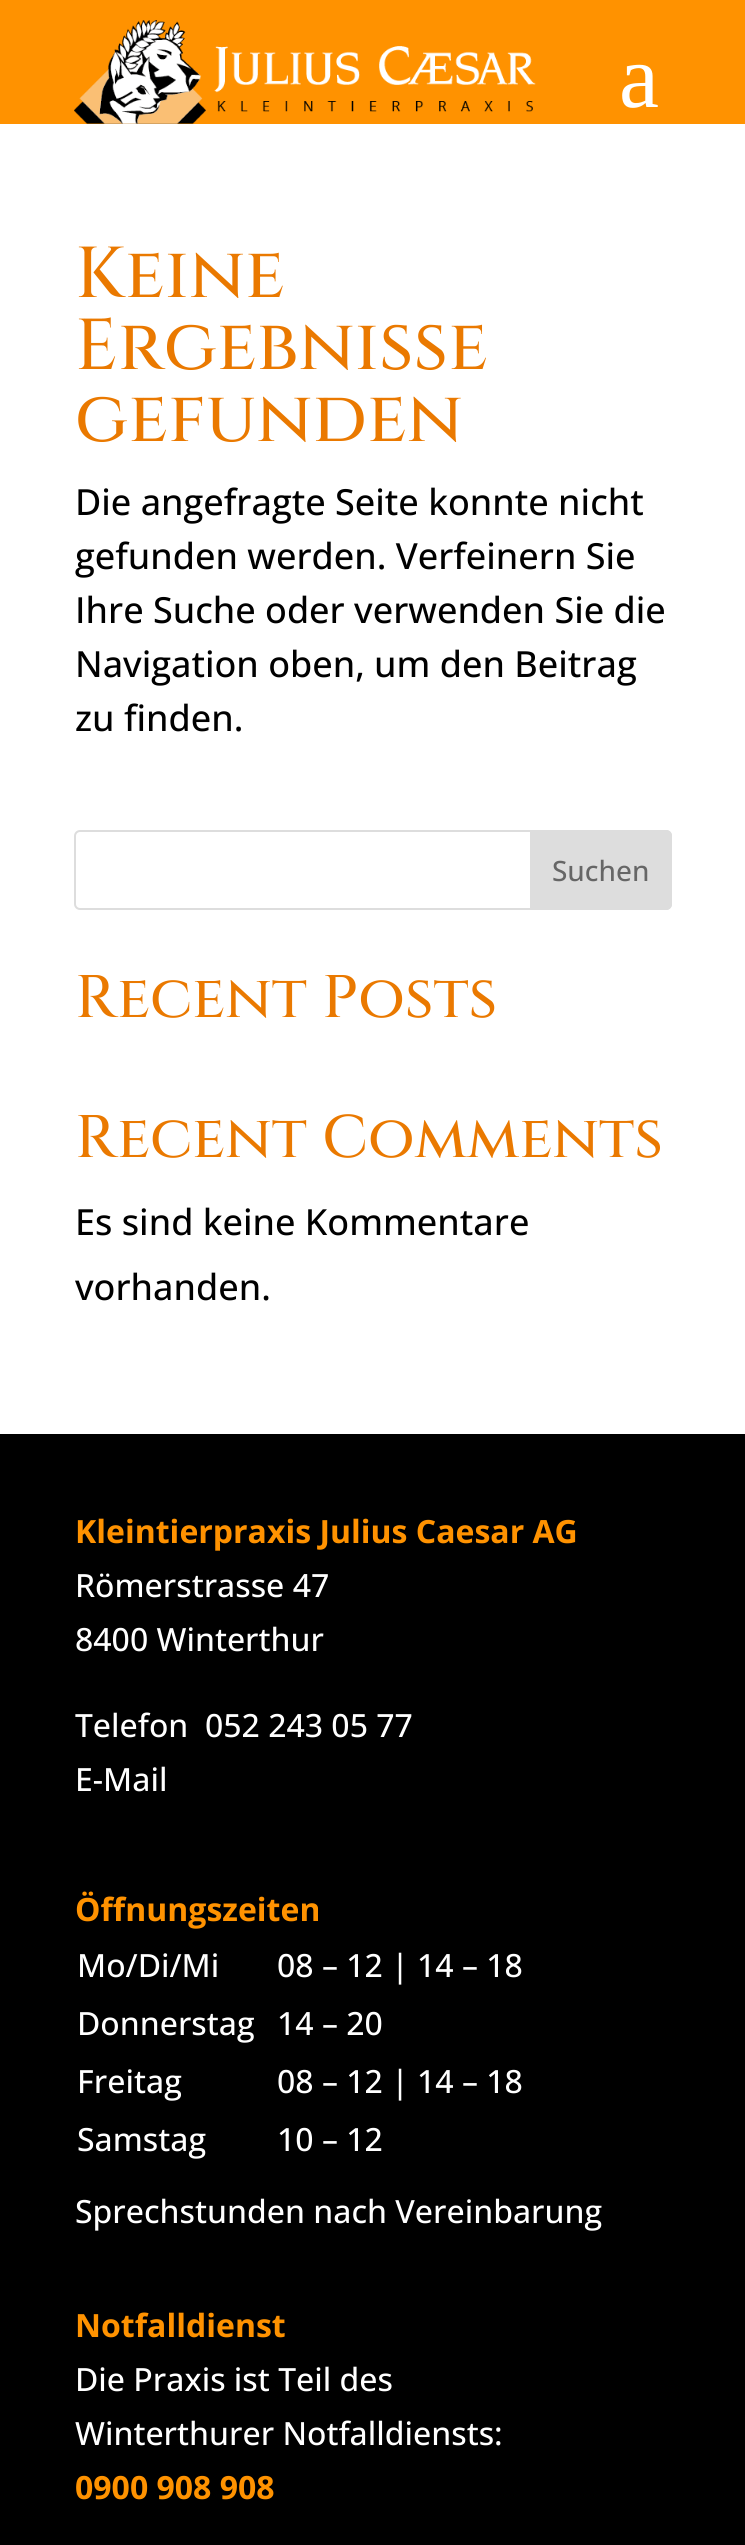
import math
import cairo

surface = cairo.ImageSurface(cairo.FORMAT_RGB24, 745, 2545)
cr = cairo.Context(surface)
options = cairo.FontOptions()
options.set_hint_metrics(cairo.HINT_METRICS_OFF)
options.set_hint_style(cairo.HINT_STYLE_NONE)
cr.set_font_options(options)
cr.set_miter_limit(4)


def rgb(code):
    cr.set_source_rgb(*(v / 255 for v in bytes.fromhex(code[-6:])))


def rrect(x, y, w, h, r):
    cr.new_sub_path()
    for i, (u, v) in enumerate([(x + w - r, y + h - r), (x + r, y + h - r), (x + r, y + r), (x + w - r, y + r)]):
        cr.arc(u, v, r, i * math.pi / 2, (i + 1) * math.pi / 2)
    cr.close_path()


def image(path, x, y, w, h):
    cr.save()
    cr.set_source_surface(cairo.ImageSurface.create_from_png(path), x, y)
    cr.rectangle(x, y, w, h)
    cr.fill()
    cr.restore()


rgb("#ffffff")
cr.paint()
rgb("#ff9200")
cr.rectangle(0, 0, 745, 124)
cr.fill()
image("img/1.png", 74, 20, 462, 104)
rrect(75, 831, 596, 78, 5)
rgb("#dddddd")
cr.stroke()
cr.new_path()
cr.move_to(531, 831)
cr.line_to(666, 831)
cr.curve_to(669, 831, 671, 833, 671, 836)
cr.line_to(671, 904)
cr.curve_to(671, 907, 669, 909, 666, 909)
cr.line_to(531, 909)
cr.close_path()
cr.fill_preserve()
cr.stroke()
rgb("#000000")
cr.rectangle(0, 1434, 745, 1111)
cr.fill()
cr.select_font_face("Liberation Serif")
cr.set_font_size(90)
rgb("#ffffff")
cr.move_to(619, 107)
cr.show_text("a")
cr.select_font_face("Cinzel Medium")
cr.set_font_size(72)
rgb("#ea7900")
for x, y, s in [
    (75, 297, "Keine"),
    (75, 369, "Ergebnisse"),
    (75, 441, "gefunden"),
]:
    cr.move_to(x, y)
    cr.show_text(s)
cr.select_font_face("Open Sans Medium")
cr.set_font_size(36)
rgb("#000000")
for x, y, s in [
    (75, 515, "Die angefragte Seite konnte nicht"),
    (75, 569, "gefunden werden. Verfeinern Sie"),
    (75, 623, "Ihre Suche oder verwenden Sie die"),
    (75, 677, "Navigation oben, um den Beitrag"),
    (75, 731, "zu finden."),
]:
    cr.move_to(x, y)
    cr.show_text(s)
cr.set_font_size(28)
rgb("#666666")
cr.move_to(552, 881)
cr.show_text("Suchen")
cr.select_font_face("Cinzel Medium")
cr.set_font_size(60)
rgb("#ea7900")
cr.move_to(75, 1017)
cr.show_text("Recent Posts")
cr.move_to(75, 1157)
cr.show_text("Recent Comments")
cr.select_font_face("Open Sans Medium")
cr.set_font_size(36)
rgb("#000000")
cr.move_to(75, 1235)
cr.show_text("Es sind keine Kommentare")
cr.move_to(75, 1300)
cr.show_text("vorhanden.")
cr.select_font_face("Open Sans", cairo.FONT_SLANT_NORMAL, cairo.FONT_WEIGHT_BOLD)
cr.set_font_size(32)
rgb("#ff9200")
cr.move_to(75, 1543)
cr.show_text("Kleintierpraxis Julius Caesar AG")
cr.select_font_face("Open Sans Medium")
rgb("#ffffff")
for x, y, s in [
    (75, 1597, "Römerstrasse 47"),
    (75, 1651, "8400 Winterthur"),
    (75, 1737, "Telefon  052 243 05 77"),
    (75, 1791, "E-Mail"),
]:
    cr.move_to(x, y)
    cr.show_text(s)
cr.select_font_face("Open Sans", cairo.FONT_SLANT_NORMAL, cairo.FONT_WEIGHT_BOLD)
rgb("#ff9200")
cr.move_to(75, 1921)
cr.show_text("Öffnungszeiten")
cr.select_font_face("Open Sans Medium")
rgb("#ffffff")
for x, y, s in [
    (77, 1977, "Mo/Di/Mi"),
    (277, 1977, "08 – 12 | 14 – 18"),
    (77, 2035, "Donnerstag"),
    (277, 2035, "14 – 20"),
    (77, 2093, "Freitag"),
    (277, 2093, "08 – 12 | 14 – 18"),
    (77, 2151, "Samstag"),
    (277, 2151, "10 – 12"),
    (75, 2223, "Sprechstunden nach Vereinbarung"),
]:
    cr.move_to(x, y)
    cr.show_text(s)
cr.select_font_face("Open Sans", cairo.FONT_SLANT_NORMAL, cairo.FONT_WEIGHT_BOLD)
rgb("#ff9200")
cr.move_to(75, 2337)
cr.show_text("Notfalldienst")
cr.select_font_face("Open Sans Medium")
rgb("#ffffff")
cr.move_to(75, 2391)
cr.show_text("Die Praxis ist Teil des")
cr.move_to(75, 2445)
cr.show_text("Winterthurer Notfalldiensts:")
cr.select_font_face("Open Sans", cairo.FONT_SLANT_NORMAL, cairo.FONT_WEIGHT_BOLD)
rgb("#ff9200")
cr.move_to(75, 2499)
cr.show_text("0900 908 908")
surface.write_to_png("page.png")
